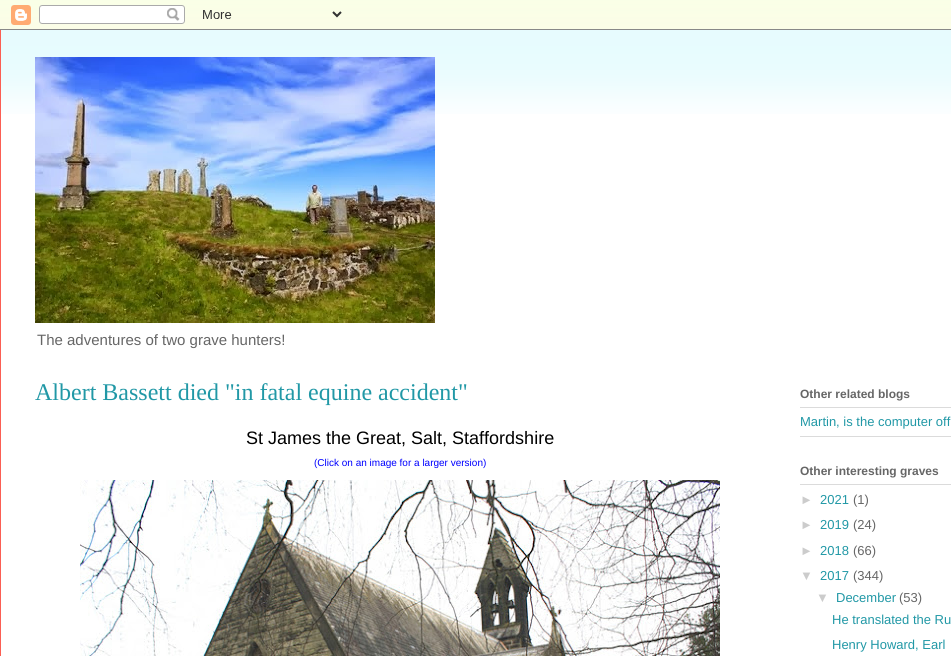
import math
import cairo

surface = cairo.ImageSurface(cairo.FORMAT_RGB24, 951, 656)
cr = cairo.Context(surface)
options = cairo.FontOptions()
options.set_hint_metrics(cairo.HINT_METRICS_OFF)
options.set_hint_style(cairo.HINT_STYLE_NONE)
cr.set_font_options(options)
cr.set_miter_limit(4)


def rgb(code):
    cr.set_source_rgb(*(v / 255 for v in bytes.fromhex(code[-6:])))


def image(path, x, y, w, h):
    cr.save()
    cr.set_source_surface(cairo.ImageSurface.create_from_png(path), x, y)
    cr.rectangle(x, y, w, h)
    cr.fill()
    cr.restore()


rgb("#ffffff")
cr.paint()
image("img/1.png", 0, 0, 951, 29)
image("img/2.png", 0, 0, 951, 30)
image("img/3.png", 1, 30, 950, 84)
rgb("#fb5e53")
cr.rectangle(0, 30, 1, 626)
cr.fill()
image("img/4.png", 35, 57, 400, 266)
image("img/5.png", 80, 480, 640, 176)
for x, y, w, h, color in [
    (800, 436, 151, 1, "#dbdbdb"),
    (800, 407, 151, 1, "#dbdbdb"),
    (800, 484, 151, 1, "#dbdbdb"),
]:
    rgb(color)
    cr.rectangle(x, y, w, h)
    cr.fill()
cr.select_font_face("Liberation Sans")
cr.set_font_size(15)
rgb("#666666")
cr.move_to(37, 345)
cr.show_text("The adventures of two grave hunters!")
cr.select_font_face("Liberation Serif")
cr.set_font_size(24)
rgb("#2198a6")
cr.move_to(35, 400)
cr.show_text("Albert Bassett died \"in fatal equine accident\"")
cr.select_font_face("Liberation Sans")
cr.set_font_size(18)
rgb("#000000")
cr.move_to(246, 444)
cr.show_text("St James the Great, Salt, Staffordshire")
cr.set_font_size(10)
rgb("#0000ff")
cr.move_to(314, 466)
cr.show_text("(Click on an image for a larger version)")
cr.select_font_face("Liberation Sans", cairo.FONT_SLANT_NORMAL, cairo.FONT_WEIGHT_BOLD)
cr.set_font_size(12)
rgb("#666666")
cr.move_to(800, 398)
cr.show_text("Other related blogs")
cr.select_font_face("Liberation Sans")
cr.set_font_size(13)
rgb("#2198a6")
cr.move_to(800, 426)
cr.show_text("Martin, is the computer off")
cr.select_font_face("Liberation Sans", cairo.FONT_SLANT_NORMAL, cairo.FONT_WEIGHT_BOLD)
cr.set_font_size(12)
rgb("#666666")
cr.move_to(800, 475)
cr.show_text("Other interesting graves")
cr.select_font_face("Liberation Sans")
cr.set_font_size(13)
rgb("#cccccc")
cr.move_to(800, 504)
cr.show_text("►")
rgb("#2198a6")
cr.move_to(820, 504)
cr.show_text("2021")
rgb("#666666")
cr.move_to(853, 504)
cr.show_text("(1)")
rgb("#cccccc")
cr.move_to(800, 529)
cr.show_text("►")
rgb("#2198a6")
cr.move_to(820, 529)
cr.show_text("2019")
rgb("#666666")
cr.move_to(853, 529)
cr.show_text("(24)")
rgb("#cccccc")
cr.move_to(800, 555)
cr.show_text("►")
rgb("#2198a6")
cr.move_to(820, 555)
cr.show_text("2018")
rgb("#666666")
cr.move_to(853, 555)
cr.show_text("(66)")
rgb("#cccccc")
cr.move_to(800, 580)
cr.show_text("▼")
rgb("#2198a6")
cr.move_to(820, 580)
cr.show_text("2017")
rgb("#666666")
cr.move_to(853, 580)
cr.show_text("(344)")
rgb("#cccccc")
cr.move_to(816, 602)
cr.show_text("▼")
rgb("#2198a6")
cr.move_to(836, 602)
cr.show_text("December")
rgb("#666666")
cr.move_to(899, 602)
cr.show_text("(53)")
rgb("#2198a6")
cr.move_to(832, 624)
cr.show_text("He translated the Ru")
cr.move_to(832, 649)
cr.show_text("Henry Howard, Earl")
surface.write_to_png("page.png")
